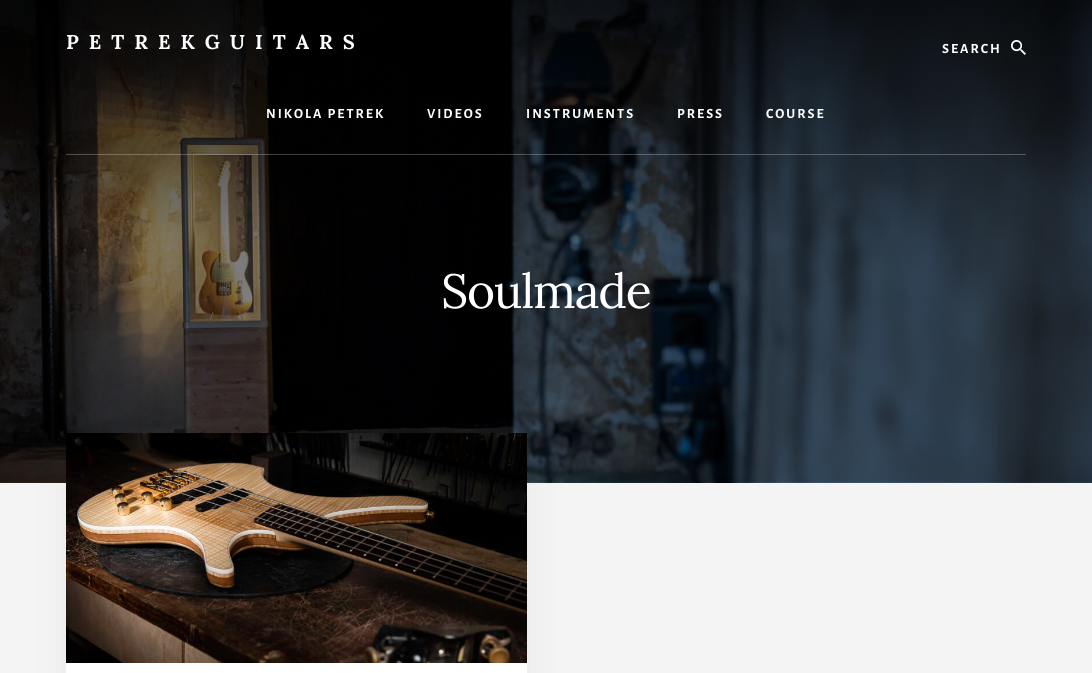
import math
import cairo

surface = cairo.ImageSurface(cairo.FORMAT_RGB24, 1092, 673)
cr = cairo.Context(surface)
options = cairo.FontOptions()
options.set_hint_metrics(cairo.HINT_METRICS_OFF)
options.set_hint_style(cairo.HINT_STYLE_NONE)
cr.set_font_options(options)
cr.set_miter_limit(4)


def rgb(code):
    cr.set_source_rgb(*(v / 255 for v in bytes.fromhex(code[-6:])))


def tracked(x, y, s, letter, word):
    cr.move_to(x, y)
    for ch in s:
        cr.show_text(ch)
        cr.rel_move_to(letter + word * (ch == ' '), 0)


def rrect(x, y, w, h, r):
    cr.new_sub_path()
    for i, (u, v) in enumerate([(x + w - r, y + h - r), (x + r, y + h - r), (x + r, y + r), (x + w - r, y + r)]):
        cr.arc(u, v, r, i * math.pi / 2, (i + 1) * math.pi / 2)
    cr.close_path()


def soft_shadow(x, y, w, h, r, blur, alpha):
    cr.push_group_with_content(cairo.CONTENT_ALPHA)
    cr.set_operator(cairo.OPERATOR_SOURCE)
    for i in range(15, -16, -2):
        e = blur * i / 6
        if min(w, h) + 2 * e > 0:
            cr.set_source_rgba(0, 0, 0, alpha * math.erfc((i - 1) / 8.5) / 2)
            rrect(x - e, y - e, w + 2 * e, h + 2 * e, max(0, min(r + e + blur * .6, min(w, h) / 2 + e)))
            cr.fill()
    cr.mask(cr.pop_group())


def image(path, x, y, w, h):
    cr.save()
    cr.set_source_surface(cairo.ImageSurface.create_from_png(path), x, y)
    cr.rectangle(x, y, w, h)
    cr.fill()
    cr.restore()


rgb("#f4f4f4")
cr.paint()
image("img/1.png", 0, 0, 1092, 483)
image("img/2.png", 1011, 40, 15, 15)
cr.set_source_rgba(1, 1, 1, 0.25)
cr.rectangle(66, 154, 960, 1)
cr.fill()
rgb("#000000")
soft_shadow(66, 458, 461, 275, 0, 20, 0.05)
rgb("#ffffff")
cr.rectangle(66, 663, 461, 10)
cr.fill()
image("img/3.png", 66, 433, 461, 230)
cr.select_font_face("Lora", cairo.FONT_SLANT_NORMAL, cairo.FONT_WEIGHT_BOLD)
cr.set_font_size(20)
tracked(66, 49, "PETREKGUITARS", 10, 0)
cr.select_font_face("Alegreya Sans", cairo.FONT_SLANT_NORMAL, cairo.FONT_WEIGHT_BOLD)
cr.set_font_size(14)
for x, y, s in [
    (942, 53, "SEARCH"),
    (266, 118, "NIKOLA PETREK"),
    (427, 118, "VIDEOS"),
    (526, 118, "INSTRUMENTS"),
    (677, 118, "PRESS"),
    (766, 118, "COURSE"),
]:
    tracked(x, y, s, 2, 0)
cr.select_font_face("Lora")
cr.set_font_size(48)
tracked(441, 308, "Soulmade", -1.25, 0)
surface.write_to_png("page.png")
